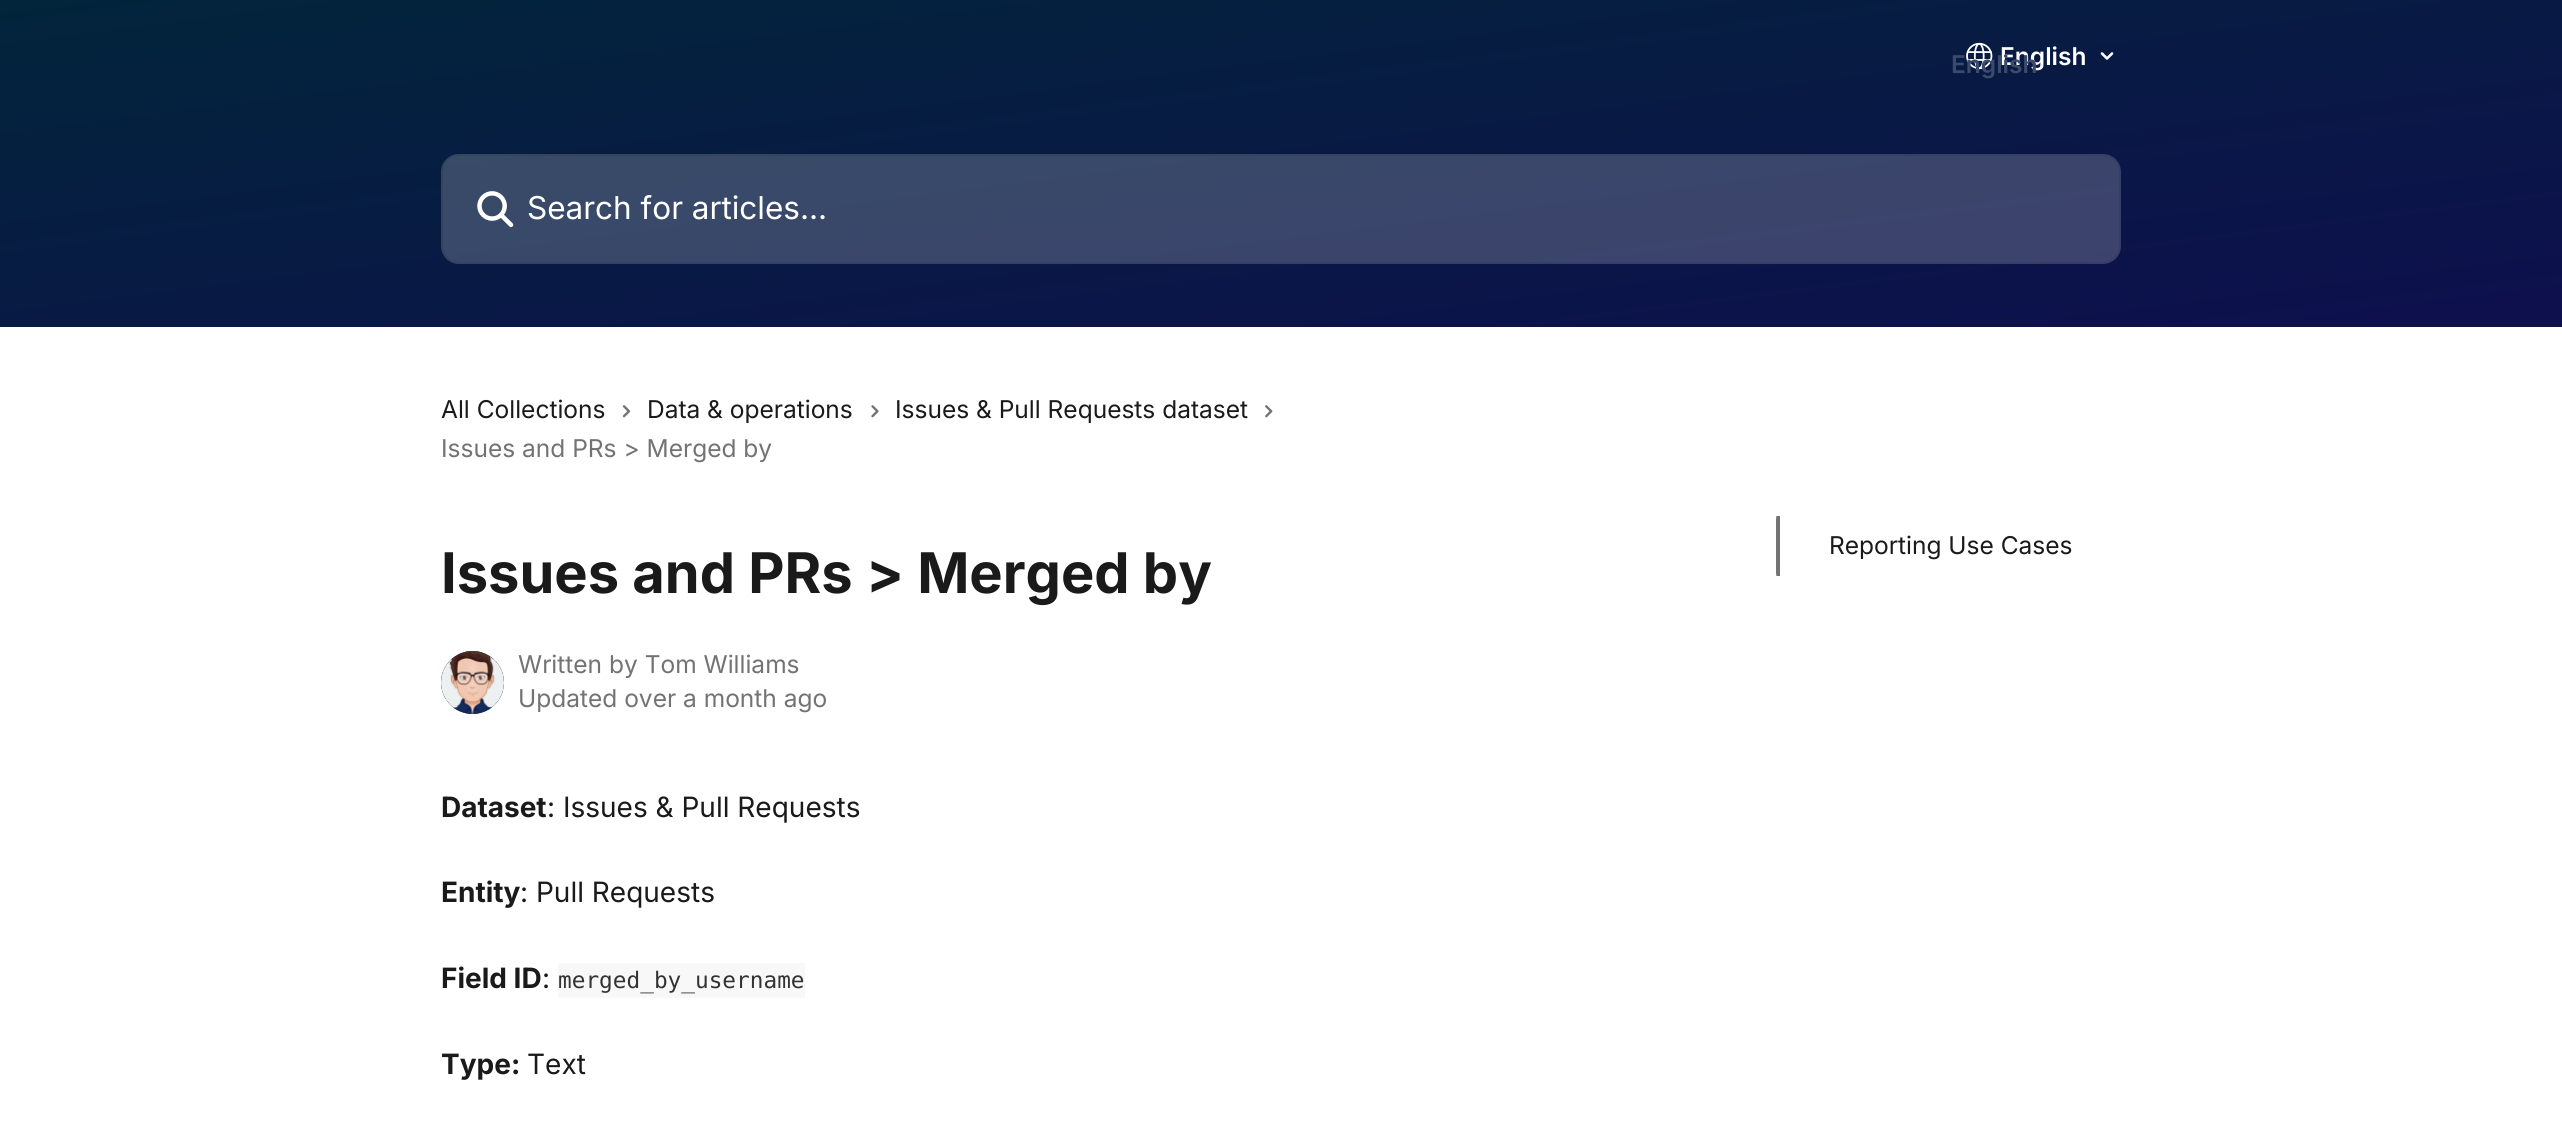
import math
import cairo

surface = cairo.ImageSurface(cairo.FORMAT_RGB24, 2562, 1127)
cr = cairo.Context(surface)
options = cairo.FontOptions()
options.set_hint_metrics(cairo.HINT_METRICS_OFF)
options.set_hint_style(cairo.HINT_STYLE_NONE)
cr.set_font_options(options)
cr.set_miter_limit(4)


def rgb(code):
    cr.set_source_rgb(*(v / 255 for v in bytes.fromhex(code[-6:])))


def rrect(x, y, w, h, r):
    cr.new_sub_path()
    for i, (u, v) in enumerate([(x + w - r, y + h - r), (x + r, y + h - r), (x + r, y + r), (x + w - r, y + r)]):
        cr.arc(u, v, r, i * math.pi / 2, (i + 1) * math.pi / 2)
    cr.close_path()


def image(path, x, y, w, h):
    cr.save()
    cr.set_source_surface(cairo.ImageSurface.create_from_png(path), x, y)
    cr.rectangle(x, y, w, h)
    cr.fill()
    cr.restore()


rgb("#ffffff")
cr.paint()
gradient = cairo.LinearGradient(1240, -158, 1322, 486)
gradient.add_color_stop_rgba(0, 0.008, 0.145, 0.231, 1)
gradient.add_color_stop_rgba(1, 0.055, 0.059, 0.302, 1)
cr.set_source(gradient)
cr.rectangle(0, 0, 2562, 327)
cr.fill()
image("img/1.png", 1966, 42, 27, 28)
cr.new_path()
cr.move_to(2102, 53.5)
cr.line_to(2107, 58.5)
cr.line_to(2112, 53.5)
rgb("#ffffff")
cr.set_line_width(2.6)
cr.set_line_cap(cairo.LINE_CAP_ROUND)
cr.set_line_join(cairo.LINE_JOIN_ROUND)
cr.stroke()
cr.set_source_rgba(1, 1, 1, 0.2)
rrect(441, 154, 1680, 110, 18)
cr.fill()
rrect(442, 155, 1678, 108, 17)
cr.set_source_rgba(0, 0, 0, 0.08)
cr.set_line_width(2)
cr.set_line_cap(cairo.LINE_CAP_BUTT)
cr.set_line_join(cairo.LINE_JOIN_MITER)
cr.stroke()
image("img/2.png", 477, 191, 37, 37)
image("img/3.png", 622, 405, 9, 13)
image("img/4.png", 871, 405, 8, 13)
image("img/5.png", 1265, 405, 8, 13)
rgb("#02253b")
cr.arc(472.5, 682.5, 31.5, 0, 2 * math.pi)
cr.fill()
image("img/6.png", 441, 651, 63, 63)
rgb("#f8f8f8")
cr.rectangle(558, 963, 247, 35)
cr.fill()
cr.save()
rrect(1776, 502, 345, 88, 18)
cr.clip()
rgb("#737373")
cr.rectangle(1776, 516, 4, 60)
cr.fill()
cr.restore()
cr.select_font_face("Inter SemiBold")
cr.set_font_size(24.5)
rgb("#ffffff")
cr.move_to(2000, 65)
cr.show_text("English")
rgb("#3c4b6c")
cr.move_to(1951, 73)
cr.show_text("English")
cr.select_font_face("Inter")
cr.set_font_size(31.5)
rgb("#ffffff")
cr.move_to(527, 219)
cr.show_text("Search for articles...")
cr.set_font_size(24.5)
rgb("#1a1a1a")
for x, y, s in [
    (441, 418, "All Collections"),
    (647, 418, "Data & operations"),
    (895, 418, "Issues & Pull Requests dataset"),
]:
    cr.move_to(x, y)
    cr.show_text(s)
rgb("#737373")
cr.move_to(441, 457)
cr.show_text("Issues and PRs > Merged by")
cr.select_font_face("Inter", cairo.FONT_SLANT_NORMAL, cairo.FONT_WEIGHT_BOLD)
cr.set_font_size(56)
rgb("#1a1a1a")
cr.move_to(441, 593)
cr.show_text("Issues and PRs > Merged by")
cr.select_font_face("Inter")
cr.set_font_size(24.5)
rgb("#737373")
cr.move_to(518, 673)
cr.show_text("Written by Tom Williams")
cr.move_to(518, 707)
cr.show_text("Updated over a month ago")
cr.select_font_face("Inter", cairo.FONT_SLANT_NORMAL, cairo.FONT_WEIGHT_BOLD)
cr.set_font_size(28)
rgb("#1a1a1a")
cr.move_to(441, 817)
cr.show_text("Dataset")
cr.select_font_face("Inter")
cr.move_to(547, 817)
cr.show_text(": Issues & Pull Requests")
cr.select_font_face("Inter", cairo.FONT_SLANT_NORMAL, cairo.FONT_WEIGHT_BOLD)
cr.move_to(441, 902)
cr.show_text("Entity")
cr.select_font_face("Inter")
cr.move_to(520, 902)
cr.show_text(": Pull Requests")
cr.select_font_face("Inter", cairo.FONT_SLANT_NORMAL, cairo.FONT_WEIGHT_BOLD)
cr.move_to(441, 988)
cr.show_text("Field ID")
cr.select_font_face("Inter")
cr.move_to(542, 988)
cr.show_text(":")
cr.select_font_face("DejaVu Sans Mono")
cr.set_font_size(22.75)
rgb("#333333")
cr.move_to(558, 988)
cr.show_text("merged_by_username")
cr.select_font_face("Inter", cairo.FONT_SLANT_NORMAL, cairo.FONT_WEIGHT_BOLD)
cr.set_font_size(28)
rgb("#1a1a1a")
cr.move_to(441, 1074)
cr.show_text("Type:")
cr.select_font_face("Inter")
cr.move_to(527, 1074)
cr.show_text("Text")
cr.set_font_size(24.5)
cr.move_to(1829, 554)
cr.show_text("Reporting Use Cases")
surface.write_to_png("page.png")
